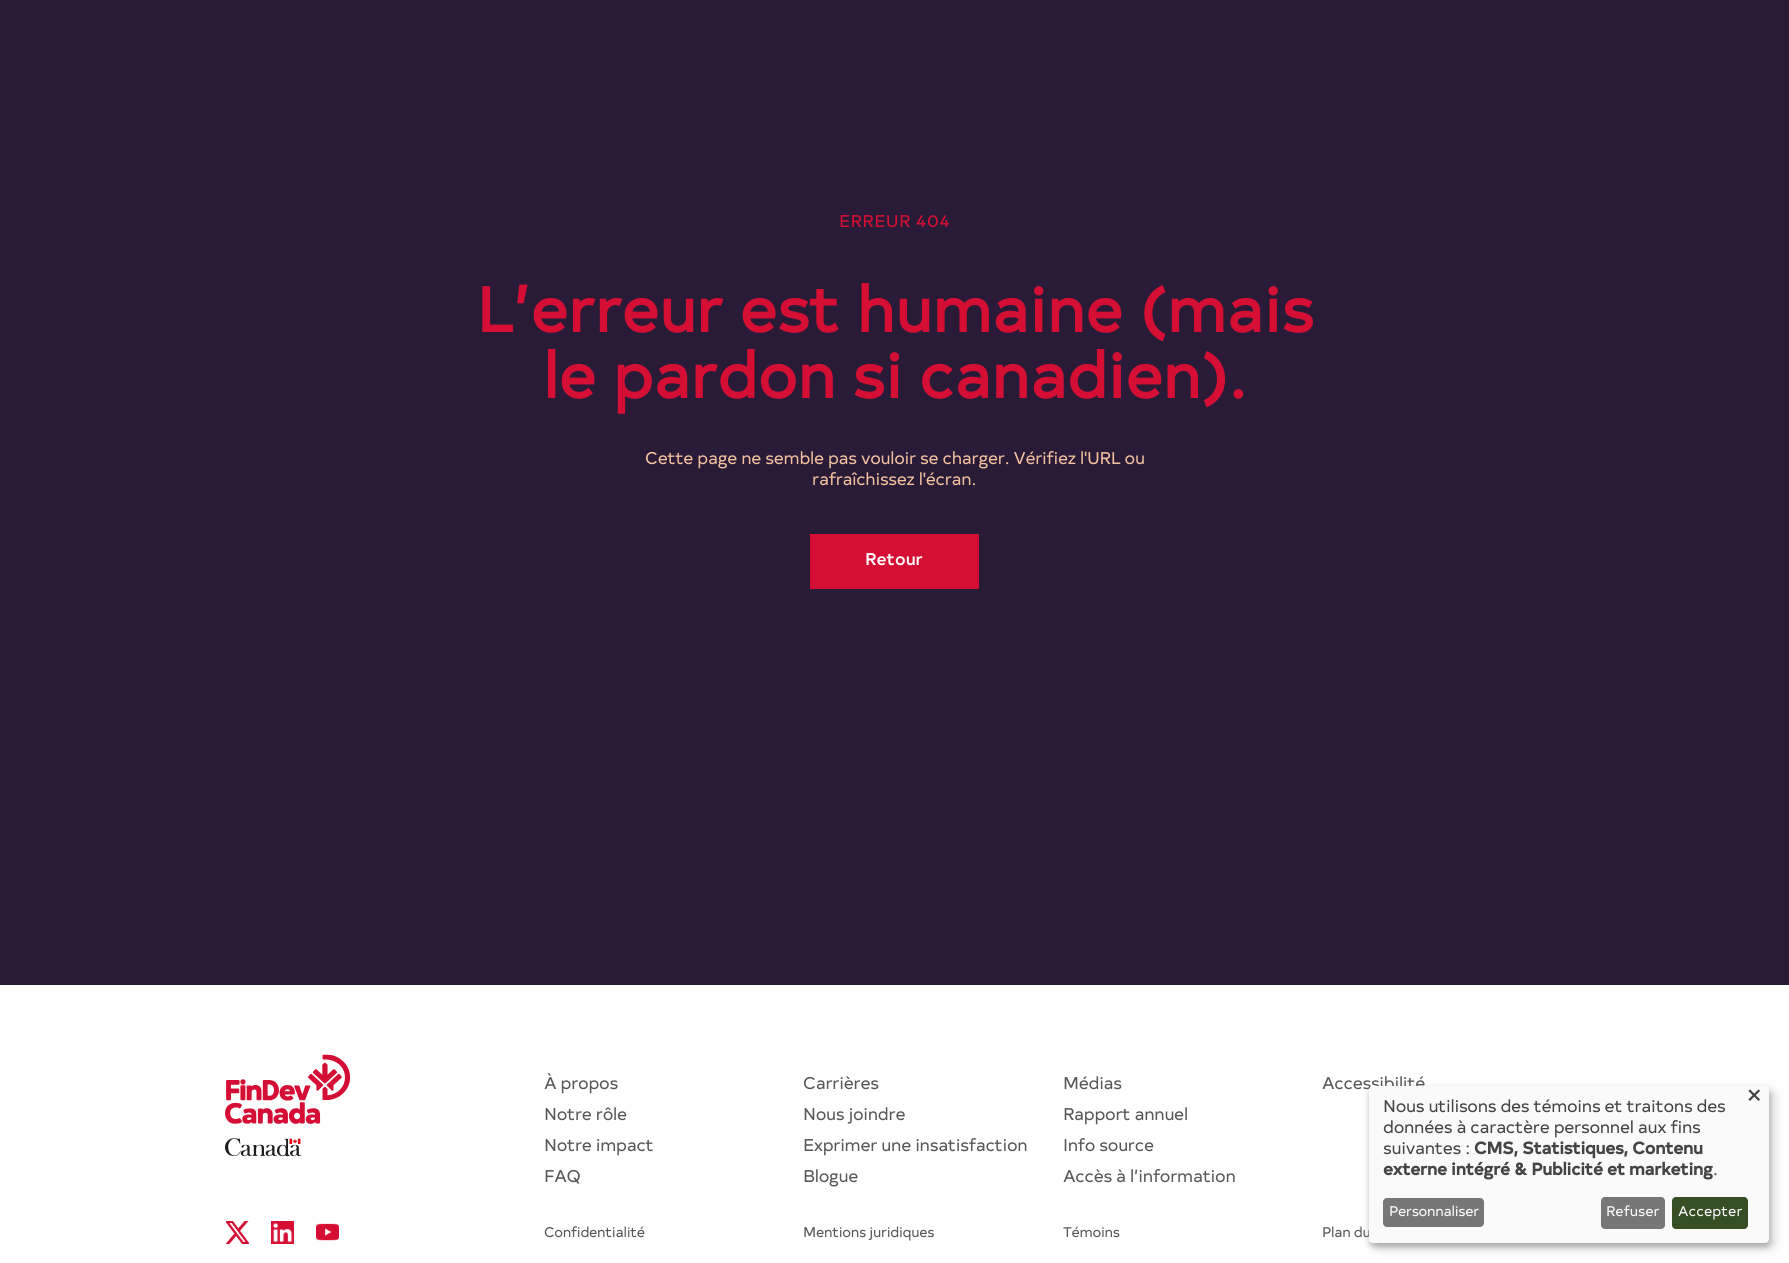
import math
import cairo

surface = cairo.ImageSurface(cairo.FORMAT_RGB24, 1789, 1263)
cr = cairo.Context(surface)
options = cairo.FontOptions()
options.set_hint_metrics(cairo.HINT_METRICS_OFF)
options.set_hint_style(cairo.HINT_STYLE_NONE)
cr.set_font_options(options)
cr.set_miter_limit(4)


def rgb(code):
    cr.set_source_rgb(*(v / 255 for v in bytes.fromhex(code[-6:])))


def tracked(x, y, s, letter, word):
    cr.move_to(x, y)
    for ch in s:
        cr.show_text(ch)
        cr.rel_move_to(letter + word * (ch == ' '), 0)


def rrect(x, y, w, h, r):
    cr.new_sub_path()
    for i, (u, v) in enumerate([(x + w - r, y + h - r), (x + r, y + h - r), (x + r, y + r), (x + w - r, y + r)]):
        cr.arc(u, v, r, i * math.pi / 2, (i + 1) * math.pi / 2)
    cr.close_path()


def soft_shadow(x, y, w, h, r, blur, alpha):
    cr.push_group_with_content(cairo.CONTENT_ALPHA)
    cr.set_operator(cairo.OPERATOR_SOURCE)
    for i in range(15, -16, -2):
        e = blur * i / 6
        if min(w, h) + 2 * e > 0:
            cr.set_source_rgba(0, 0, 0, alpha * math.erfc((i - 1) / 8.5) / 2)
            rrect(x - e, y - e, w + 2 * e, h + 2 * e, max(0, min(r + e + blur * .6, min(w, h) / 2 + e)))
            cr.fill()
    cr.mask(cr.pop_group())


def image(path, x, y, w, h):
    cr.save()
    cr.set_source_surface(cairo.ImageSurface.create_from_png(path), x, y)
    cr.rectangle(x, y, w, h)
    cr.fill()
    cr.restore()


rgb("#291a37")
cr.paint()
rgb("#d50f34")
cr.rectangle(810, 534, 169, 55)
cr.fill()
rgb("#ffffff")
cr.rectangle(0, 985, 1789, 278)
cr.fill()
image("img/1.png", 225, 1054, 126, 70)
image("img/2.png", 225, 1138, 77, 19)
image("img/3.png", 226, 1221, 23, 23)
image("img/4.png", 271, 1221, 23, 23)
image("img/5.png", 316, 1223, 23, 18)
rgb("#000000")
soft_shadow(1374, 1091, 400, 157, 4, 5, 0.19)
soft_shadow(1369, 1090, 400, 157, 4, 3, 0.2)
cr.select_font_face("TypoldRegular")
cr.set_font_size(17)
rgb("#d50f34")
tracked(839, 227, "ERREUR 404", 0.5, 0)
cr.select_font_face("TypoldRegular", cairo.FONT_SLANT_NORMAL, cairo.FONT_WEIGHT_BOLD)
cr.set_font_size(63)
cr.move_to(476, 332)
cr.show_text("L’erreur est humaine (mais")
cr.move_to(543, 398)
cr.show_text("le pardon si canadien).")
cr.select_font_face("TypoldRegular")
cr.set_font_size(17)
rgb("#f1c09d")
tracked(645, 464, "Cette page ne semble pas vouloir se charger. Vérifiez l'URL ou", -0.3, 0)
tracked(812, 485, "rafraîchissez l'écran.", -0.3, 0)
cr.select_font_face("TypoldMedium")
rgb("#ffffff")
cr.move_to(865, 565)
cr.show_text("Retour")
cr.select_font_face("TypoldRegular")
rgb("#575757")
for x, y, s in [
    (544, 1089, "À propos"),
    (803, 1089, "Carrières"),
    (1063, 1089, "Médias"),
    (1322, 1089, "Accessibilité"),
    (544, 1120, "Notre rôle"),
    (803, 1120, "Nous joindre"),
    (1063, 1120, "Rapport annuel"),
    (544, 1151, "Notre impact"),
    (803, 1151, "Exprimer une insatisfaction"),
    (1063, 1151, "Info source"),
    (544, 1182, "FAQ"),
    (803, 1182, "Blogue"),
    (1063, 1182, "Accès à l’information"),
]:
    tracked(x, y, s, -0.3, 0)
cr.set_font_size(14)
for x, y, s in [
    (544, 1237, "Confidentialité"),
    (803, 1237, "Mentions juridiques"),
    (1063, 1237, "Témoins"),
    (1322, 1237, "Plan du"),
]:
    tracked(x, y, s, -0.3, 0)
rgb("#fafafa")
rrect(1369, 1086, 400, 157, 4)
cr.fill()
cr.set_font_size(28)
rgb("#444444")
cr.move_to(1747, 1103)
cr.show_text("×")
cr.set_font_size(17)
for x, y, s in [
    (1383, 1112, "Nous utilisons des témoins et traitons des"),
    (1383, 1133, "données à caractère personnel aux fins"),
    (1383, 1154, "suivantes :"),
]:
    tracked(x, y, s, -0.3, 0)
cr.select_font_face("TypoldMedium", cairo.FONT_SLANT_NORMAL, cairo.FONT_WEIGHT_BOLD)
tracked(1474, 1154, "CMS, Statistiques, Contenu", -0.3, 0)
tracked(1383, 1175, "externe intégré & Publicité et marketing", -0.3, 0)
cr.select_font_face("TypoldRegular")
tracked(1713, 1175, ".", -0.3, 0)
rgb("#777777")
rrect(1383, 1198, 101, 29, 4)
cr.fill()
cr.set_font_size(14)
rgb("#ffffff")
tracked(1389, 1216, "Personnaliser", -0.3, 0)
rgb("#777777")
rrect(1601, 1197, 64, 32, 4)
cr.fill()
rgb("#ffffff")
cr.move_to(1606, 1216)
cr.show_text("Refuser")
rgb("#354e24")
rrect(1672, 1197, 76, 32, 4)
cr.fill()
rgb("#ffffff")
cr.move_to(1678, 1216)
cr.show_text("Accepter")
surface.write_to_png("page.png")
